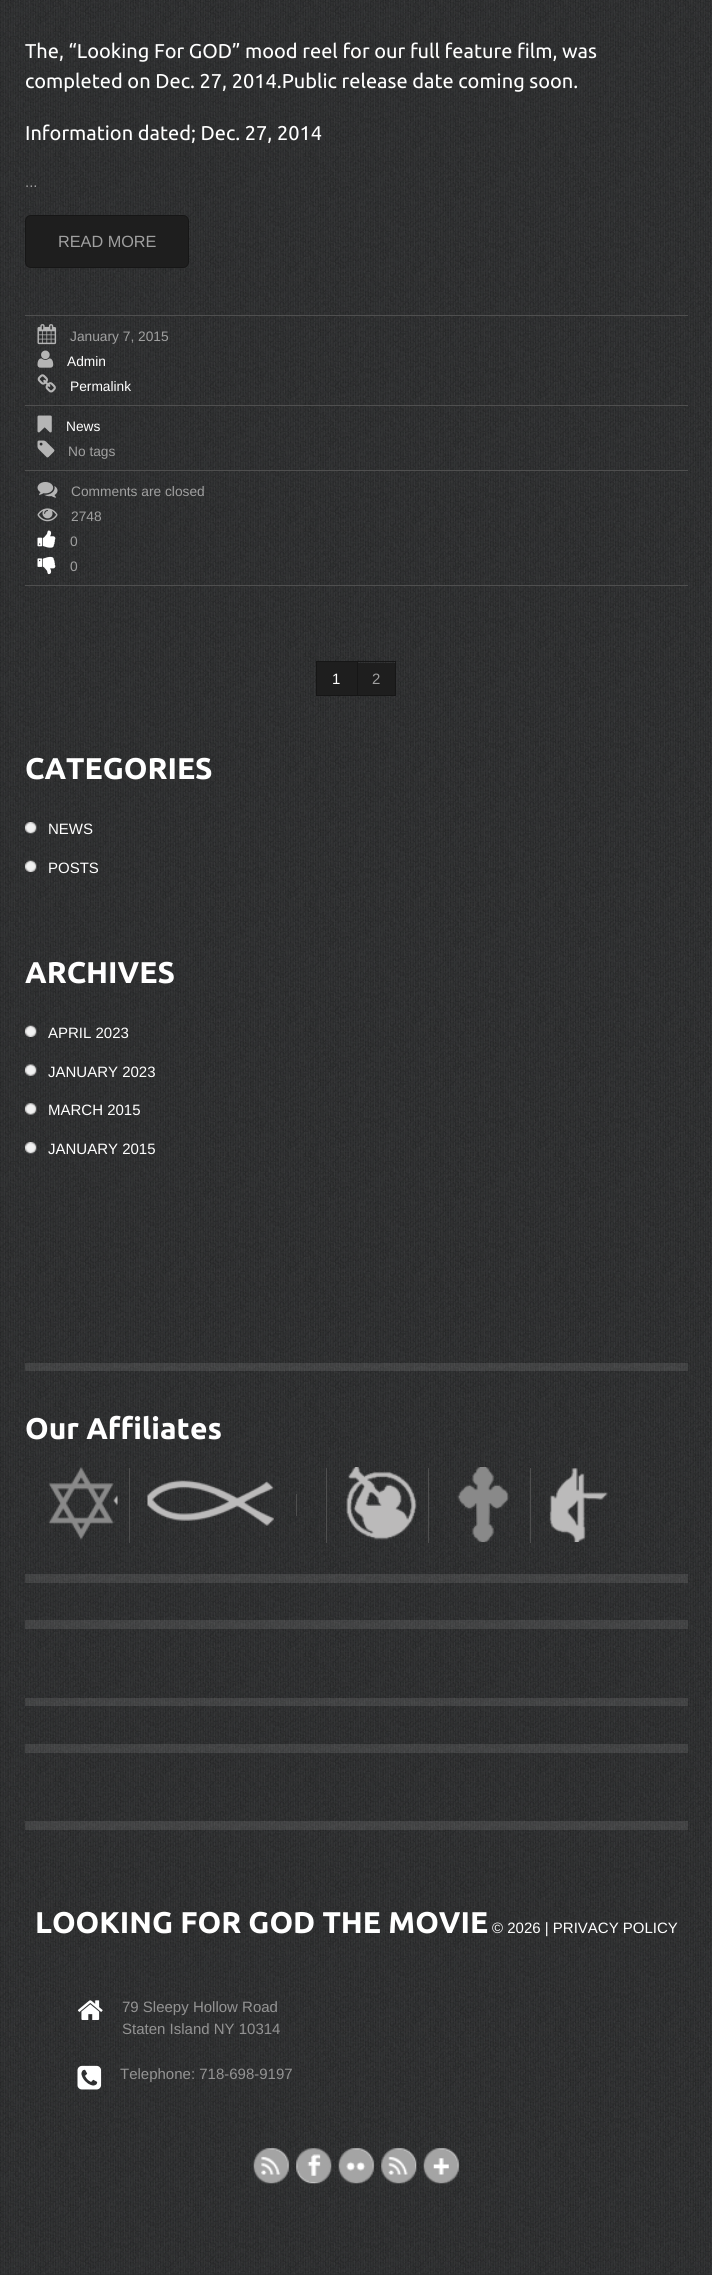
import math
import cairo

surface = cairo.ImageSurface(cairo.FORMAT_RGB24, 712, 2275)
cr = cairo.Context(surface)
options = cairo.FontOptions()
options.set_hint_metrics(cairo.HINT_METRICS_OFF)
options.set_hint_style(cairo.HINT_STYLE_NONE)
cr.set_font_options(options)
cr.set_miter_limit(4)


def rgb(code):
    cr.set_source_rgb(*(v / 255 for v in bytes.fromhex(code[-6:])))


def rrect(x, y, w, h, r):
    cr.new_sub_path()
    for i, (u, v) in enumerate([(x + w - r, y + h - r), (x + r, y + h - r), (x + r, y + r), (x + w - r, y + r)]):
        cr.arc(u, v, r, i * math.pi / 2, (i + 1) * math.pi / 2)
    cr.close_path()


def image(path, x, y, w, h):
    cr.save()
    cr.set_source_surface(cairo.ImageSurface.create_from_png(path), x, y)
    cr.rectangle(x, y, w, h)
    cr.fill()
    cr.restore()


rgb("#2a2b2c")
cr.paint()
image("img/1.png", 0, 0, 712, 2275)
rgb("#1e1e1e")
rrect(25.5, 215.5, 163, 52, 5.5)
cr.fill_preserve()
rgb("#161616")
cr.set_line_width(1)
cr.stroke()
rgb("#4f4f4f")
cr.rectangle(25, 315, 663, 1)
cr.fill()
cr.rectangle(25, 585, 663, 1)
cr.fill()
image("img/2.png", 37, 324, 20, 21)
image("img/3.png", 37, 350, 17, 18)
image("img/4.png", 37, 374, 19, 19)
cr.rectangle(25, 405, 663, 1)
cr.fill()
image("img/5.png", 37, 415, 15, 18)
image("img/6.png", 37, 440, 18, 18)
cr.rectangle(25, 470, 663, 1)
cr.fill()
image("img/7.png", 37, 482, 21, 16)
image("img/8.png", 37, 508, 21, 14)
image("img/9.png", 37, 530, 19, 18)
image("img/10.png", 37, 556, 19, 19)
rgb("#1e1e1e")
cr.rectangle(316.5, 661.5, 41, 34)
cr.fill_preserve()
rgb("#161616")
cr.stroke()
for x, y, w, h, color in [
    (358, 663, 37, 32, "#1e1e1e"),
    (358, 661, 38, 1, "#161616"),
    (395, 661, 1, 35, "#161616"),
    (358, 695, 38, 1, "#161616"),
]:
    rgb(color)
    cr.rectangle(x, y, w, h)
    cr.fill()
image("img/11.png", 25, 822, 12, 12)
image("img/12.png", 25, 860, 12, 12)
image("img/13.png", 25, 1025, 12, 12)
image("img/14.png", 25, 1064, 12, 12)
image("img/15.png", 25, 1103, 12, 12)
image("img/16.png", 25, 1142, 12, 12)
cr.set_source_rgba(1, 1, 1, 0.1)
cr.rectangle(25, 1363, 663, 8)
cr.fill()
cr.rectangle(25, 1574, 663, 9)
cr.fill()
image("img/17.png", 48, 1467, 70, 73)
rgb("#4f4f4f")
cr.rectangle(129, 1468, 1, 75)
cr.fill()
image("img/18.png", 147, 1480, 127, 46)
cr.rectangle(296, 1494, 1, 22)
cr.fill()
cr.rectangle(326, 1468, 1, 75)
cr.fill()
image("img/19.png", 346, 1467, 71, 73)
cr.rectangle(428, 1468, 1, 75)
cr.fill()
image("img/20.png", 457, 1467, 52, 75)
cr.rectangle(530, 1468, 1, 75)
cr.fill()
image("img/21.png", 549, 1468, 59, 74)
cr.set_source_rgba(1, 1, 1, 0.1)
cr.rectangle(25, 1620, 663, 9)
cr.fill()
cr.rectangle(25, 1698, 663, 8)
cr.fill()
cr.rectangle(25, 1744, 663, 9)
cr.fill()
cr.rectangle(25, 1821, 663, 9)
cr.fill()
image("img/22.png", 77, 2000, 26, 20)
image("img/23.png", 77, 2065, 25, 25)
image("img/24.png", 253, 2148, 36, 36)
image("img/25.png", 296, 2148, 36, 36)
image("img/26.png", 338, 2148, 36, 36)
image("img/27.png", 381, 2148, 36, 36)
image("img/28.png", 423, 2148, 36, 36)
cr.select_font_face("Ubuntu")
cr.set_font_size(20)
rgb("#ffffff")
for x, y, s in [
    (25, 58, "The, “Looking For GOD” mood reel for our full feature film, was"),
    (25, 88, "completed on Dec. 27, 2014.Public release date coming soon."),
    (25, 140, "Information dated; Dec. 27, 2014"),
]:
    cr.move_to(x, y)
    cr.show_text(s)
cr.select_font_face("Liberation Sans")
cr.set_font_size(15)
rgb("#a0a0a0")
cr.move_to(25, 187)
cr.show_text("...")
cr.set_font_size(16.25)
cr.move_to(58, 247)
cr.show_text("READ MORE")
cr.set_font_size(13.75)
cr.move_to(70, 341)
cr.show_text("January 7, 2015")
rgb("#ffffff")
for x, y, s in [
    (67, 366, "Admin"),
    (70, 391, "Permalink"),
    (66, 431, "News"),
]:
    cr.move_to(x, y)
    cr.show_text(s)
rgb("#a0a0a0")
for x, y, s in [
    (68, 456, "No tags"),
    (71, 496, "Comments are closed"),
    (71, 521, "2748"),
    (70, 546, "0"),
    (70, 571, "0"),
]:
    cr.move_to(x, y)
    cr.show_text(s)
cr.set_font_size(15)
rgb("#ffffff")
cr.move_to(332, 684)
cr.show_text("1")
rgb("#a0a0a0")
cr.move_to(372, 684)
cr.show_text("2")
cr.select_font_face("Ubuntu", cairo.FONT_SLANT_NORMAL, cairo.FONT_WEIGHT_BOLD)
cr.set_font_size(30)
rgb("#ffffff")
cr.move_to(25, 779)
cr.show_text("CATEGORIES")
cr.select_font_face("Liberation Sans")
cr.set_font_size(15)
cr.move_to(48, 834)
cr.show_text("NEWS")
cr.move_to(48, 873)
cr.show_text("POSTS")
cr.select_font_face("Ubuntu", cairo.FONT_SLANT_NORMAL, cairo.FONT_WEIGHT_BOLD)
cr.set_font_size(30)
cr.move_to(25, 983)
cr.show_text("ARCHIVES")
cr.select_font_face("Liberation Sans")
cr.set_font_size(15)
for x, y, s in [
    (48, 1038, "APRIL 2023"),
    (48, 1077, "JANUARY 2023"),
    (48, 1115, "MARCH 2015"),
    (48, 1154, "JANUARY 2015"),
]:
    cr.move_to(x, y)
    cr.show_text(s)
cr.select_font_face("Ubuntu", cairo.FONT_SLANT_NORMAL, cairo.FONT_WEIGHT_BOLD)
cr.set_font_size(30)
cr.move_to(25, 1439)
cr.show_text("Our Affiliates")
cr.move_to(35, 1933)
cr.show_text("LOOKING FOR GOD THE MOVIE")
cr.select_font_face("Liberation Sans")
cr.set_font_size(15)
cr.move_to(492, 1933)
cr.show_text("© 2026 | PRIVACY POLICY")
rgb("#939393")
for x, y, s in [
    (122, 2012, "79 Sleepy Hollow Road"),
    (122, 2034, "Staten Island NY 10314"),
    (120, 2079, "Telephone: 718-698-9197"),
]:
    cr.move_to(x, y)
    cr.show_text(s)
surface.write_to_png("page.png")
